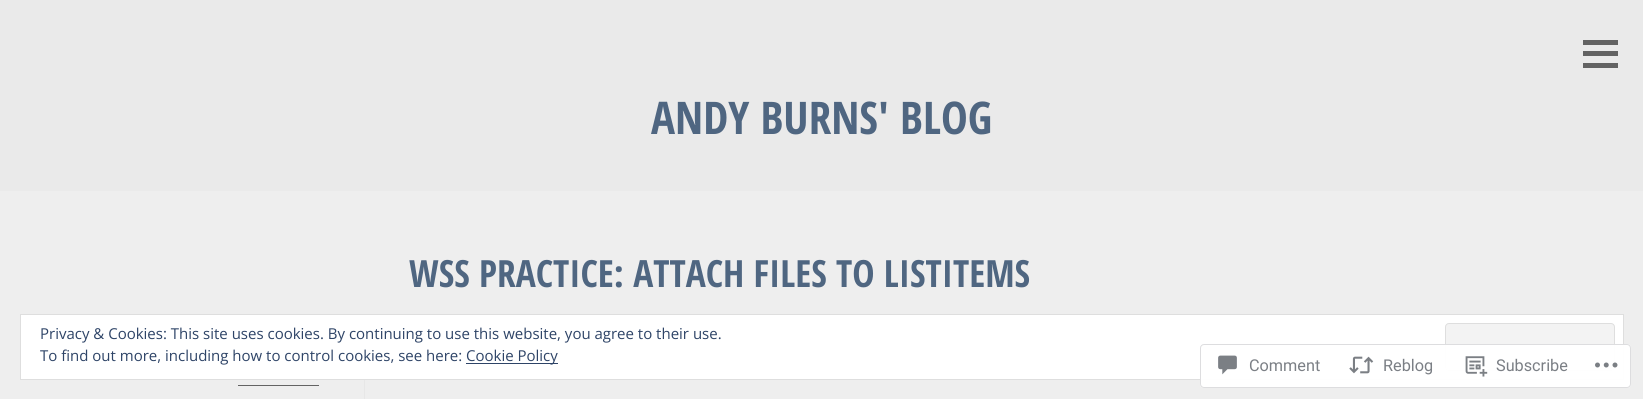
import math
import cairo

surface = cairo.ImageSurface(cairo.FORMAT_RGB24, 1643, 399)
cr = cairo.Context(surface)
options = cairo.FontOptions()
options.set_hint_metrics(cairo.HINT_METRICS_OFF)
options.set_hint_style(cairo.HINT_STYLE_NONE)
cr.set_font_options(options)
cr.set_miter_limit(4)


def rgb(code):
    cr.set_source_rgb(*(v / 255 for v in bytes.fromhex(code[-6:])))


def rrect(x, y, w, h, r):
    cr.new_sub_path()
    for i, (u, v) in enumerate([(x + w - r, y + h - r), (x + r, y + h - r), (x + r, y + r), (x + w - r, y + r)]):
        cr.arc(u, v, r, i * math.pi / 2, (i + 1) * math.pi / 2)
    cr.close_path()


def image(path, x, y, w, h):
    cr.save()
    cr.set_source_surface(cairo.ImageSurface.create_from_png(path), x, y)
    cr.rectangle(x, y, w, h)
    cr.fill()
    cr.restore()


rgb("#eeeeee")
cr.paint()
for x, y, w, h, color in [
    (0, 0, 1643, 191, "#eaeaea"),
    (1583, 40, 35, 5, "#636363"),
    (1583, 51, 35, 5, "#636363"),
    (1583, 63, 35, 5, "#636363"),
    (364, 380, 1, 19, "#e7e7e7"),
    (238, 385, 81, 1, "#636363"),
]:
    rgb(color)
    cr.rectangle(x, y, w, h)
    cr.fill()
rgb("#ffffff")
cr.rectangle(20.5, 314.5, 1603, 65)
cr.fill_preserve()
rgb("#dedede")
cr.set_line_width(1)
cr.stroke()
rgb("#f3f3f3")
rrect(1445.5, 323.5, 169, 47, 3.5)
cr.fill_preserve()
rgb("#dedede")
cr.stroke()
rgb("#2e4467")
cr.rectangle(466, 363, 92, 1)
cr.fill()
cr.set_source_rgba(1, 1, 1, 0.98)
rrect(1200, 344, 431, 44, 4)
cr.fill()
rrect(1200.5, 344.5, 430, 43, 3.5)
cr.set_source_rgba(0.863, 0.863, 0.871, 0.98)
cr.stroke()
image("img/1.png", 1218, 355, 19, 20)
image("img/2.png", 1349, 356, 25, 18)
image("img/3.png", 1465, 356, 23, 21)
image("img/4.png", 1595, 362, 23, 6)
cr.select_font_face("Open Sans Condensed", cairo.FONT_SLANT_NORMAL, cairo.FONT_WEIGHT_BOLD)
cr.set_font_size(45)
rgb("#4f6681")
cr.move_to(651, 134)
cr.show_text("ANDY BURNS' BLOG")
cr.set_font_size(37.5)
cr.move_to(409, 287)
cr.show_text("WSS PRACTICE: ATTACH FILES TO LISTITEMS")
cr.select_font_face("Open Sans")
cr.set_font_size(15)
rgb("#2e4467")
for x, y, s in [
    (40, 339, "Privacy & Cookies: This site uses cookies. By continuing to use this website, you agree to their use."),
    (40, 361, "To find out more, including how to control cookies, see here:"),
    (466, 361, "Cookie Policy"),
]:
    cr.move_to(x, y)
    cr.show_text(s)
cr.select_font_face("Roboto")
cr.set_font_size(16.25)
rgb("#7b7f85")
for x, y, s in [
    (1249, 371, "Comment"),
    (1383, 371, "Reblog"),
    (1496, 371, "Subscribe"),
]:
    cr.move_to(x, y)
    cr.show_text(s)
surface.write_to_png("page.png")
